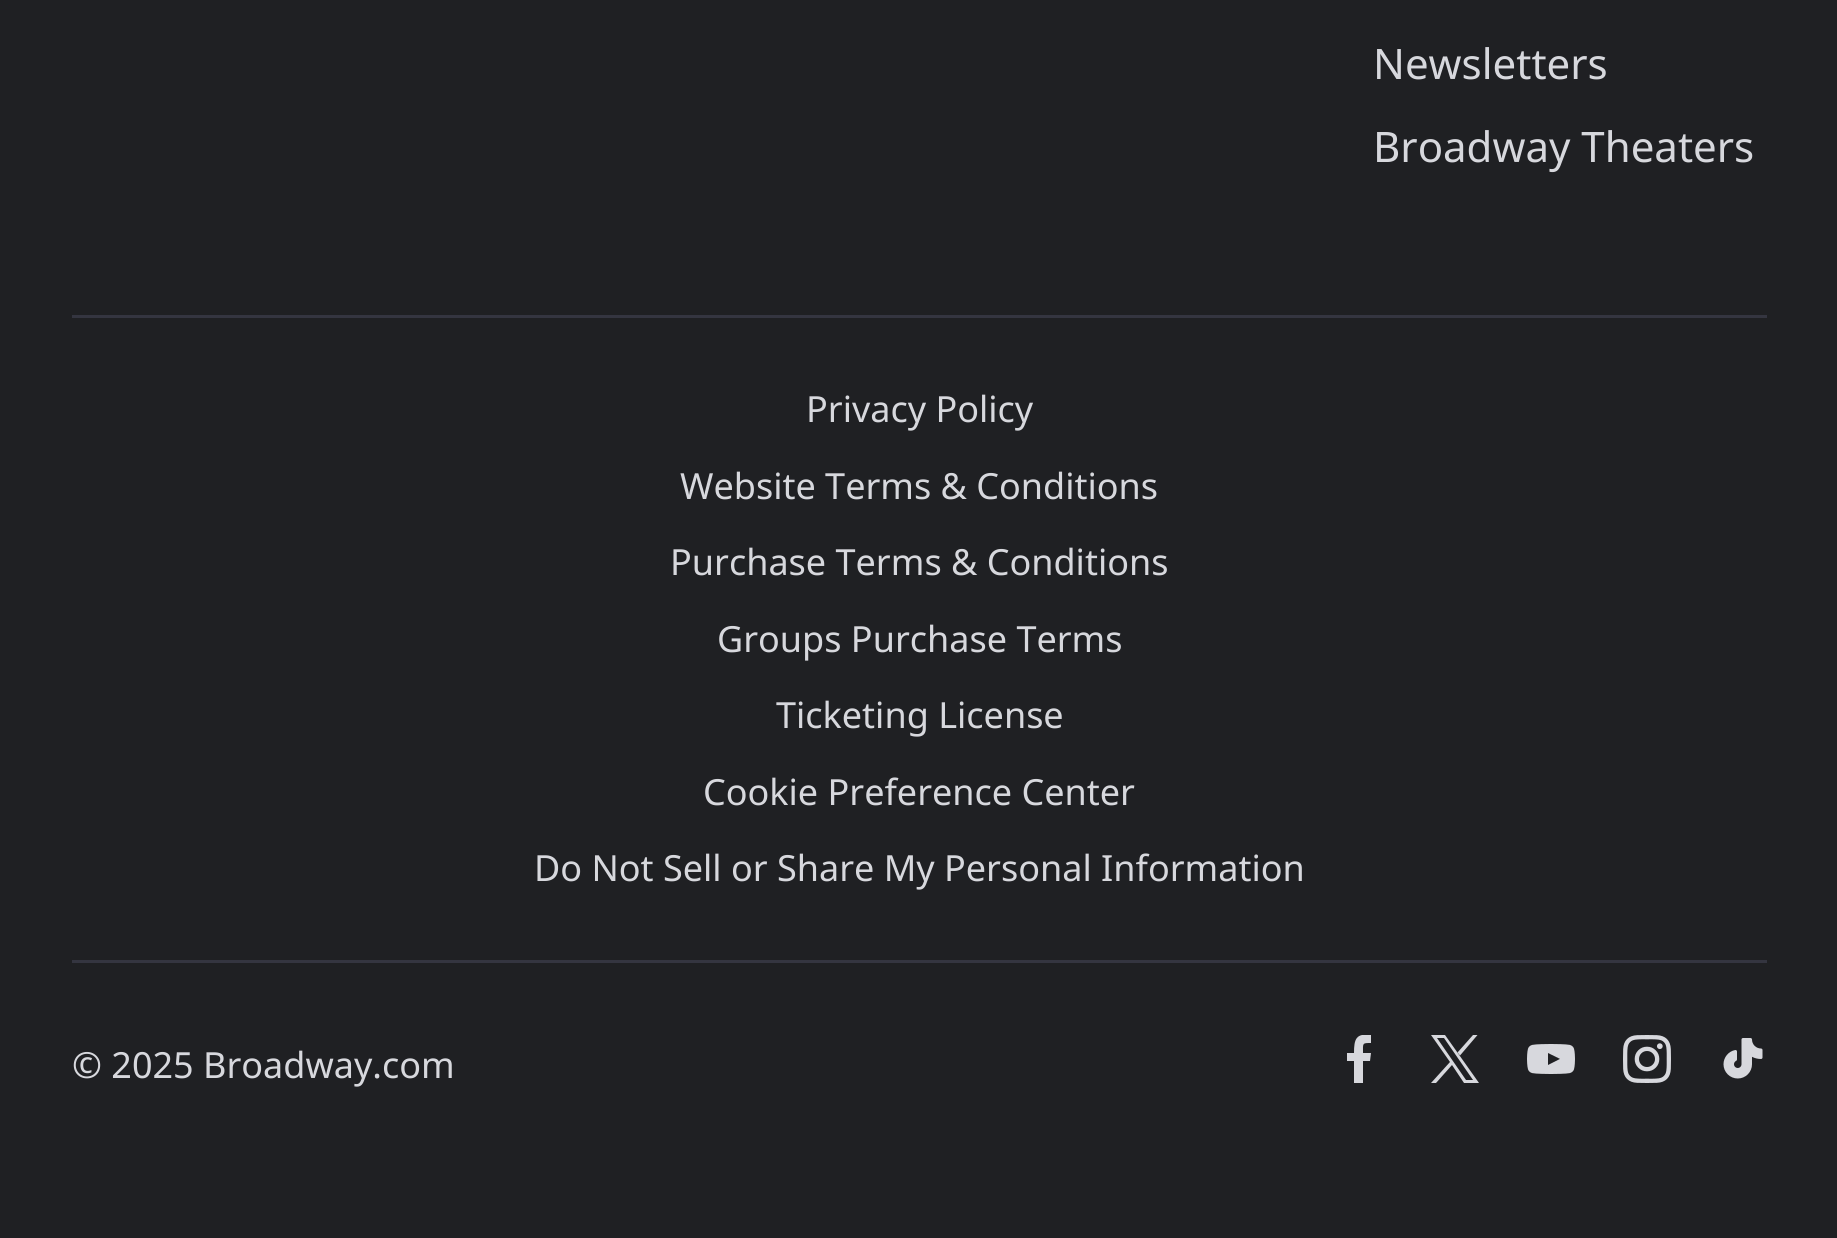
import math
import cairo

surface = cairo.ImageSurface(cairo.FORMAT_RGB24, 1837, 1238)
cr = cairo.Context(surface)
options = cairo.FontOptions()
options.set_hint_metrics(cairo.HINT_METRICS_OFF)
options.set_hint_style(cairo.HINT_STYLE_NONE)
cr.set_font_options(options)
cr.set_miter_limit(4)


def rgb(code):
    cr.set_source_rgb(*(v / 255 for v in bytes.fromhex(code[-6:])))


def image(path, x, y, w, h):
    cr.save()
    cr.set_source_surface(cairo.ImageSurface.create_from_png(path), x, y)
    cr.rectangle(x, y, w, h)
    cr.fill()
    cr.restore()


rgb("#1f2023")
cr.paint()
rgb("#343540")
cr.rectangle(72, 315, 1695, 3)
cr.fill()
cr.rectangle(72, 960, 1695, 3)
cr.fill()
cr.save()
cr.rectangle(1335, 1035, 48, 48)
cr.clip()
rgb("#d7d8dd")
cr.set_fill_rule(cairo.FILL_RULE_EVEN_ODD)
cr.new_path()
cr.move_to(1371, 1035)
cr.line_to(1371, 1043)
cr.curve_to(1362, 1043, 1363, 1043, 1363, 1053)
cr.line_to(1371, 1053)
cr.line_to(1370, 1061)
cr.line_to(1363, 1061)
cr.line_to(1363, 1083)
cr.line_to(1354, 1083)
cr.line_to(1354, 1061)
cr.line_to(1347, 1061)
cr.line_to(1347, 1053)
cr.line_to(1354, 1053)
cr.curve_to(1354, 1039, 1356, 1033, 1371, 1035)
cr.close_path()
cr.fill()
cr.restore()
rgb("#d7d8dd")
cr.set_fill_rule(cairo.FILL_RULE_EVEN_ODD)
cr.new_path()
cr.move_to(1450, 1062)
cr.line_to(1431, 1035)
cr.line_to(1445, 1035)
cr.line_to(1479, 1083)
cr.line_to(1464, 1083)
cr.line_to(1452, 1065)
cr.line_to(1436, 1083)
cr.line_to(1431, 1083)
cr.close_path()
cr.move_to(1466, 1080)
cr.line_to(1437, 1038)
cr.line_to(1444, 1038)
cr.line_to(1473, 1080)
cr.close_path()
cr.fill()
cr.set_fill_rule(cairo.FILL_RULE_WINDING)
cr.new_path()
cr.move_to(1477.5, 1035)
cr.line_to(1460, 1055.5)
cr.line_to(1457.5, 1052.5)
cr.line_to(1473, 1035)
cr.close_path()
cr.fill()
image("img/1.png", 1527, 1044, 48, 30)
image("img/2.png", 1623, 1035, 48, 48)
image("img/3.png", 1723, 1038, 40, 41)
cr.select_font_face("Noto Sans")
cr.set_font_size(42)
cr.move_to(1373, 79)
cr.show_text("Newsletters")
cr.move_to(1373, 162)
cr.show_text("Broadway Theaters")
cr.set_font_size(36)
for x, y, s in [
    (806, 422, "Privacy Policy"),
    (680, 499, "Website Terms & Conditions"),
    (670, 575, "Purchase Terms & Conditions"),
    (717, 652, "Groups Purchase Terms"),
    (776, 728, "Ticketing License"),
    (703, 805, "Cookie Preference Center"),
    (534, 881, "Do Not Sell or Share My Personal Information"),
    (72, 1078, "© 2025 Broadway.com"),
]:
    cr.move_to(x, y)
    cr.show_text(s)
surface.write_to_png("page.png")
